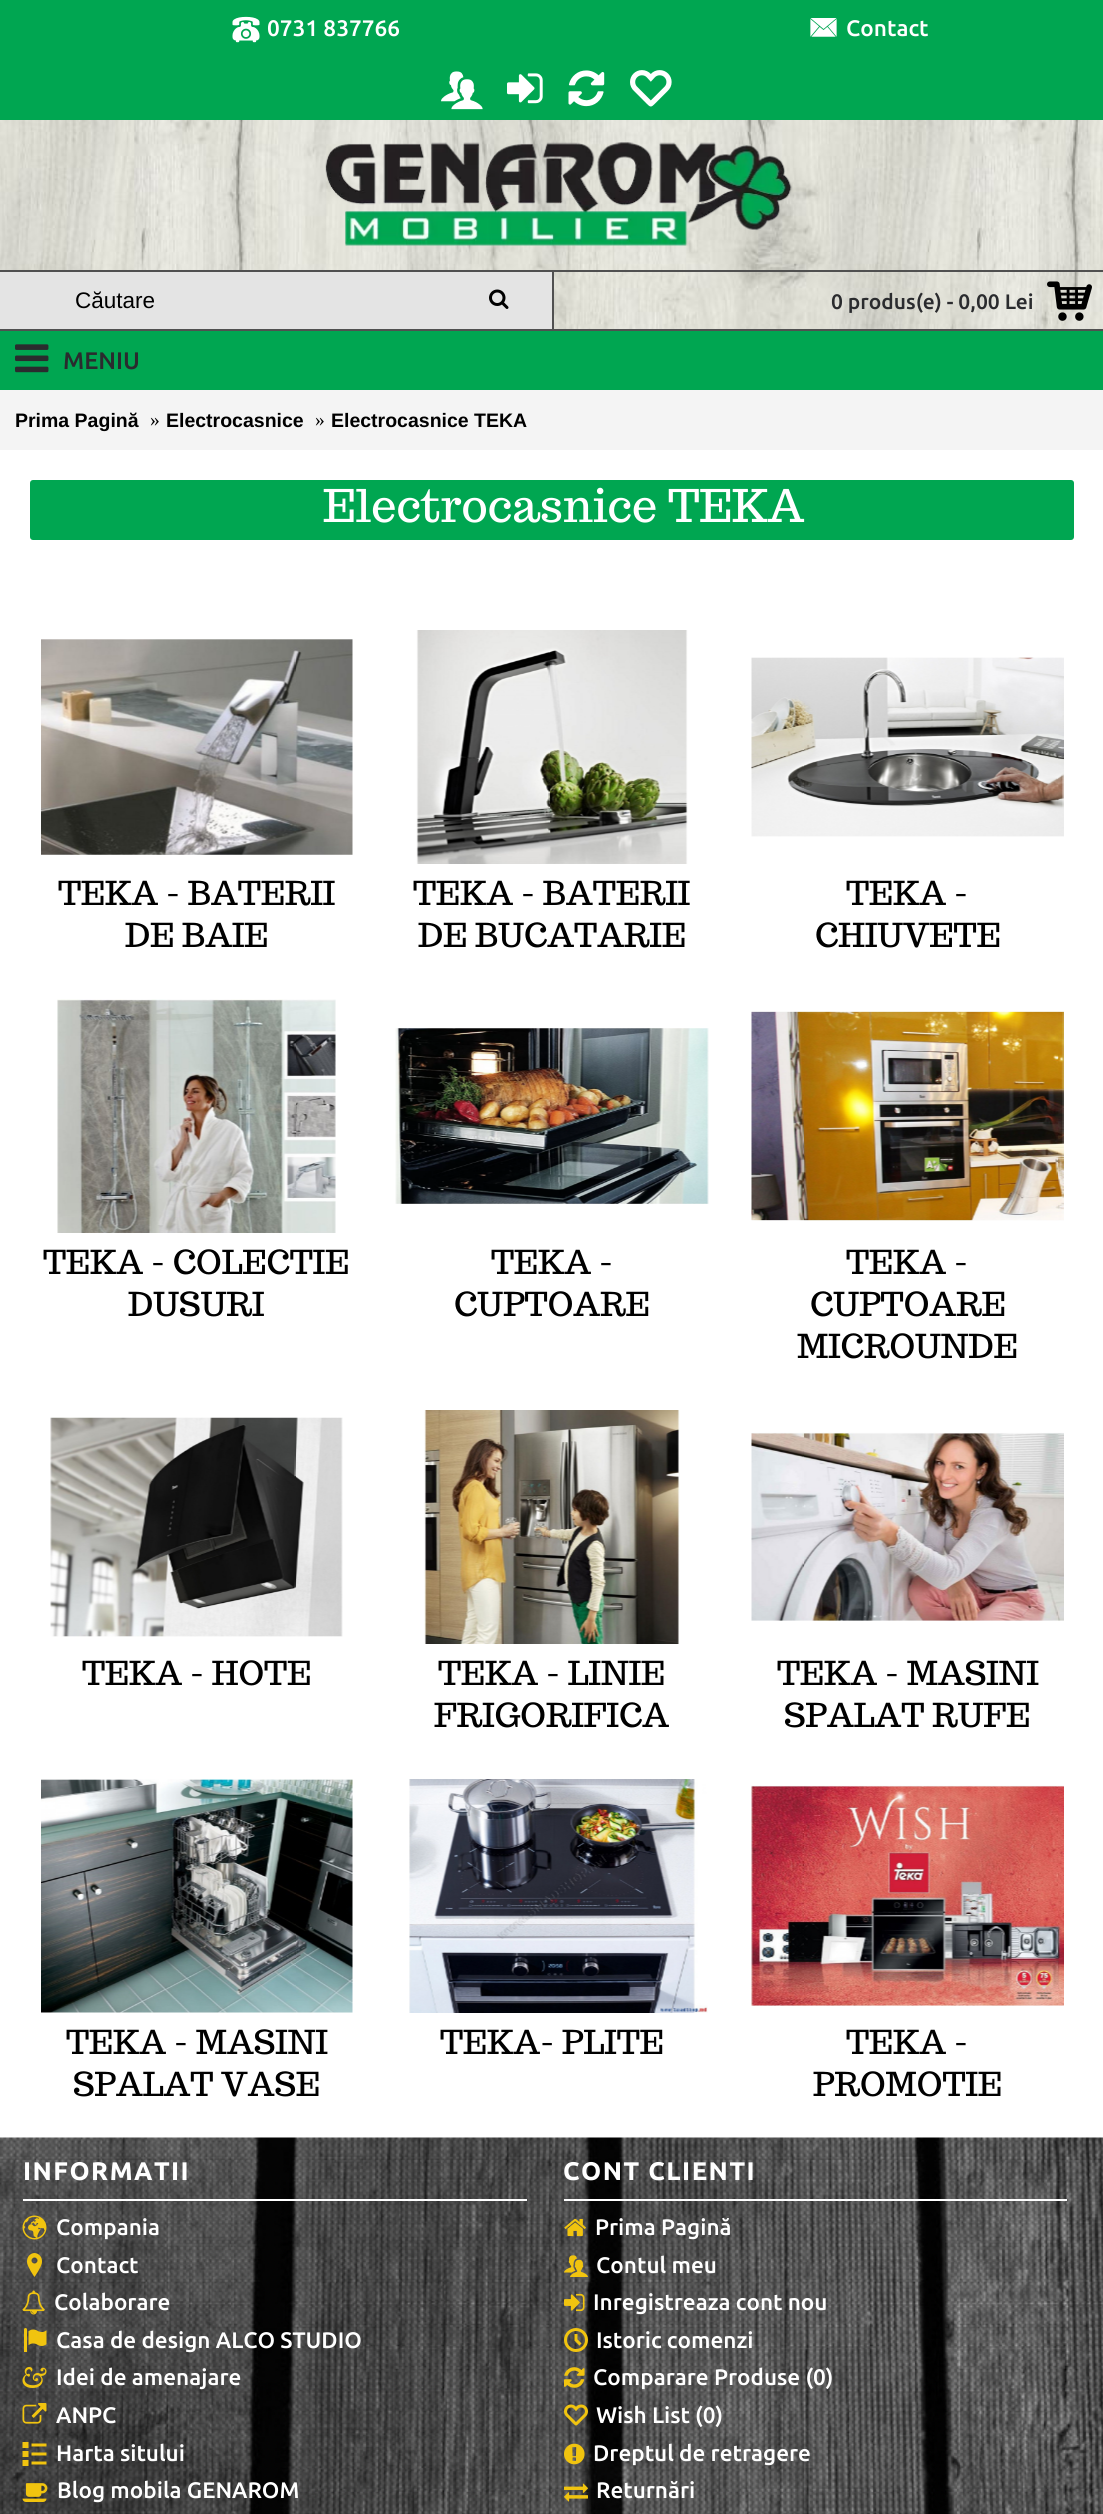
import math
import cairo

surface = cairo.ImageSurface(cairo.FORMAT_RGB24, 1103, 2514)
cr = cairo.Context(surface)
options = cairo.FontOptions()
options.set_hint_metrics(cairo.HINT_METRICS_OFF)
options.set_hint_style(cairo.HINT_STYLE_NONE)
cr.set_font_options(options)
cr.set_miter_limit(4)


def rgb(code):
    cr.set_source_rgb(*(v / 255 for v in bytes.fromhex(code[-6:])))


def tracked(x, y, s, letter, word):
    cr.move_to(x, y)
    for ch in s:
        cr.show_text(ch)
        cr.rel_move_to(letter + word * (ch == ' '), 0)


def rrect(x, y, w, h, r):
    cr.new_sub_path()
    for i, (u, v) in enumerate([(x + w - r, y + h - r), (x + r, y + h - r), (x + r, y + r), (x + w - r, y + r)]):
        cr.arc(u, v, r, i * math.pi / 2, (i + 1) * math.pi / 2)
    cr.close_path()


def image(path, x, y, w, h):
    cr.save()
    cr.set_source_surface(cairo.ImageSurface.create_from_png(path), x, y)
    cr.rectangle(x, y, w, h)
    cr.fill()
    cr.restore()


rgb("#ffffff")
cr.paint()
image("img/1.png", 0, 120, 1103, 209)
rgb("#00a651")
cr.rectangle(0, 0, 1103, 120)
cr.fill()
image("img/2.png", 232, 16, 28, 27)
image("img/3.png", 810, 18, 27, 19)
image("img/4.png", 441, 71, 42, 39)
image("img/5.png", 507, 73, 36, 31)
image("img/6.png", 568, 70, 37, 37)
image("img/7.png", 630, 70, 42, 37)
image("img/8.png", 325, 142, 467, 104)
for x, y, w, h, color in [
    (0, 272, 552, 57, "#e4e4e4"),
    (0, 270, 1103, 2, "#505050"),
    (0, 329, 1103, 2, "#505050"),
]:
    rgb(color)
    cr.rectangle(x, y, w, h)
    cr.fill()
image("img/9.png", 489, 289, 20, 20)
cr.rectangle(552, 270, 2, 60)
cr.fill()
image("img/10.png", 1047, 281, 45, 40)
rgb("#00a651")
cr.rectangle(0, 331, 1103, 59)
cr.fill()
image("img/11.png", 15, 344, 34, 29)
rgb("#f4f4f4")
cr.rectangle(0, 390, 1103, 60)
cr.fill()
rgb("#00a651")
rrect(30, 480, 1044, 60, 3)
cr.fill()
image("img/12.png", 41, 639, 312, 216)
image("img/13.png", 416, 630, 272, 234)
image("img/14.png", 751, 657, 313, 180)
image("img/15.png", 57, 999, 279, 234)
image("img/16.png", 395, 1028, 314, 176)
image("img/17.png", 751, 1011, 313, 210)
image("img/18.png", 50, 1417, 293, 220)
image("img/19.png", 424, 1410, 256, 234)
image("img/20.png", 751, 1432, 313, 189)
image("img/21.png", 41, 1779, 312, 234)
image("img/22.png", 409, 1779, 299, 234)
image("img/23.png", 751, 1785, 313, 221)
image("img/24.png", 0, 2137, 1103, 377)
rgb("#ffffff")
cr.rectangle(23, 2199, 504, 2)
cr.fill()
image("img/25.png", 22, 2215, 25, 25)
image("img/26.png", 27, 2253, 15, 24)
image("img/27.png", 22, 2290, 23, 25)
image("img/28.png", 24, 2328, 23, 24)
image("img/29.png", 22, 2367, 25, 21)
image("img/30.png", 22, 2403, 25, 21)
image("img/31.png", 22, 2442, 25, 24)
image("img/32.png", 22, 2483, 26, 19)
cr.rectangle(564, 2199, 503, 2)
cr.fill()
image("img/33.png", 564, 2218, 22, 19)
image("img/34.png", 564, 2255, 24, 22)
image("img/35.png", 564, 2293, 21, 19)
image("img/36.png", 564, 2328, 24, 24)
image("img/37.png", 564, 2367, 21, 21)
image("img/38.png", 564, 2404, 24, 22)
image("img/39.png", 564, 2443, 21, 22)
image("img/40.png", 564, 2483, 24, 19)
cr.select_font_face("Ubuntu Medium")
cr.set_font_size(22.5)
cr.move_to(267, 36)
cr.show_text("0731 837766")
cr.move_to(846, 36)
cr.show_text("Contact")
cr.select_font_face("Liberation Sans")
rgb("#000000")
cr.move_to(75, 308)
cr.show_text("Căutare")
cr.select_font_face("Ubuntu Medium")
cr.set_font_size(21)
rgb("#2a2b2e")
cr.move_to(831, 309)
cr.show_text("0 produs(e) - 0,00 Lei")
cr.set_font_size(24)
cr.move_to(63, 369)
cr.show_text("MENIU")
cr.select_font_face("Liberation Sans", cairo.FONT_SLANT_NORMAL, cairo.FONT_WEIGHT_BOLD)
cr.set_font_size(19.5)
rgb("#000000")
cr.move_to(15, 427)
cr.show_text("Prima Pagină")
cr.select_font_face("Liberation Serif")
cr.move_to(150, 426)
cr.show_text("»")
cr.select_font_face("Liberation Sans", cairo.FONT_SLANT_NORMAL, cairo.FONT_WEIGHT_BOLD)
cr.move_to(166, 427)
cr.show_text("Electrocasnice")
cr.select_font_face("Liberation Serif")
cr.move_to(315, 426)
cr.show_text("»")
cr.select_font_face("Liberation Sans", cairo.FONT_SLANT_NORMAL, cairo.FONT_WEIGHT_BOLD)
cr.move_to(331, 427)
cr.show_text("Electrocasnice TEKA")
cr.select_font_face("Trocchi")
cr.set_font_size(45)
rgb("#ffffff")
cr.move_to(323, 522)
cr.show_text("Electrocasnice TEKA")
cr.set_font_size(33)
rgb("#000000")
for x, y, s in [
    (58, 905, "TEKA - BATERII"),
    (125, 947, "DE BAIE"),
    (413, 905, "TEKA - BATERII"),
    (418, 947, "DE BUCATARIE"),
    (846, 905, "TEKA -"),
    (815, 947, "CHIUVETE"),
    (43, 1274, "TEKA - COLECTIE"),
    (128, 1316, "DUSURI"),
    (491, 1274, "TEKA -"),
    (454, 1316, "CUPTOARE"),
    (846, 1274, "TEKA -"),
    (810, 1316, "CUPTOARE"),
    (797, 1358, "MICROUNDE"),
    (82, 1685, "TEKA - HOTE"),
    (438, 1685, "TEKA - LINIE"),
    (434, 1727, "FRIGORIFICA"),
    (777, 1685, "TEKA - MASINI"),
    (784, 1727, "SPALAT RUFE"),
    (66, 2054, "TEKA - MASINI"),
    (73, 2096, "SPALAT VASE"),
    (440, 2054, "TEKA- PLITE"),
    (846, 2054, "TEKA -"),
    (813, 2096, "PROMOTIE"),
]:
    cr.move_to(x, y)
    cr.show_text(s)
cr.select_font_face("Ubuntu", cairo.FONT_SLANT_NORMAL, cairo.FONT_WEIGHT_BOLD)
cr.set_font_size(25.5)
rgb("#ffffff")
tracked(23, 2180, "INFORMATII", 1.5, 0)
cr.select_font_face("Ubuntu Medium")
cr.set_font_size(22.5)
for x, y, s in [
    (56, 2235, "Compania"),
    (56, 2273, "Contact"),
    (54, 2310, "Colaborare"),
    (56, 2348, "Casa de design ALCO STUDIO"),
    (56, 2385, "Idei de amenajare"),
    (56, 2423, "ANPC"),
    (56, 2461, "Harta sitului"),
    (57, 2498, "Blog mobila GENAROM"),
]:
    cr.move_to(x, y)
    cr.show_text(s)
cr.select_font_face("Ubuntu", cairo.FONT_SLANT_NORMAL, cairo.FONT_WEIGHT_BOLD)
cr.set_font_size(25.5)
tracked(563, 2180, "CONT CLIENTI", 1.5, 0)
cr.select_font_face("Ubuntu Medium")
cr.set_font_size(22.5)
for x, y, s in [
    (595, 2235, "Prima Pagină"),
    (596, 2273, "Contul meu"),
    (593, 2310, "Inregistreaza cont nou"),
    (596, 2348, "Istoric comenzi"),
    (593, 2385, "Comparare Produse (0)"),
    (596, 2423, "Wish List (0)"),
    (593, 2461, "Dreptul de retragere"),
    (596, 2498, "Returnări"),
]:
    cr.move_to(x, y)
    cr.show_text(s)
surface.write_to_png("page.png")
